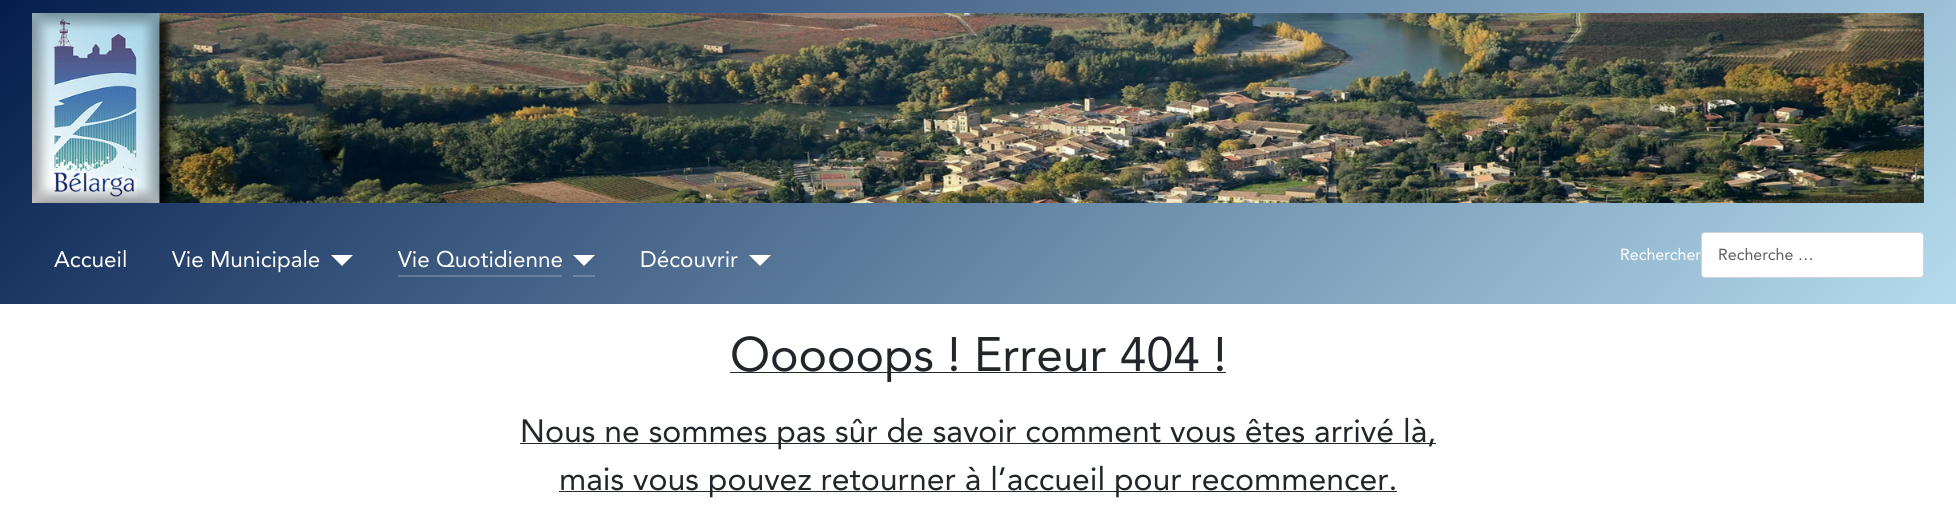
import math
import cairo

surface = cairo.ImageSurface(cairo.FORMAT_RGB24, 1956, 518)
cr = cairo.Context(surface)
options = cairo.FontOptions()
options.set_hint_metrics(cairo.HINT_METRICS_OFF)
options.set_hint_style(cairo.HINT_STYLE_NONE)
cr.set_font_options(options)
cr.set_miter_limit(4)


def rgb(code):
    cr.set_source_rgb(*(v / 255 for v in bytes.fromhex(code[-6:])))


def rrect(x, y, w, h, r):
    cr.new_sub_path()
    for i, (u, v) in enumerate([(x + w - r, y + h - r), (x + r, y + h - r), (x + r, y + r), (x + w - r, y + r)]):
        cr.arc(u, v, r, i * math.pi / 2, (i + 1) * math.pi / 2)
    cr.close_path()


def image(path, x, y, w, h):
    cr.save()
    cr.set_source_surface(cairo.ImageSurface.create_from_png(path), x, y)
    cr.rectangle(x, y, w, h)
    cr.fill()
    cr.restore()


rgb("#ffffff")
cr.paint()
gradient = cairo.LinearGradient(413, -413, 1543, 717)
gradient.add_color_stop_rgba(0, 0.016, 0.114, 0.302, 1)
gradient.add_color_stop_rgba(1, 0.71, 0.863, 0.929, 1)
cr.set_source(gradient)
cr.rectangle(0, 0, 1956, 304)
cr.fill()
gradient = cairo.LinearGradient(413, -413, 1543, 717)
gradient.add_color_stop_rgba(0, 0.212, 0.29, 0.443, 1)
gradient.add_color_stop_rgba(1, 0.769, 0.89, 0.945, 1)
cr.set_source(gradient)
cr.rectangle(398, 275, 164, 2)
cr.fill()
image("img/1.png", 32, 13, 1892, 190)
rgb("#ffffff")
cr.new_path()
cr.move_to(331, 255)
cr.line_to(353, 255)
cr.line_to(342, 266)
cr.close_path()
cr.fill()
cr.new_path()
cr.move_to(573, 255)
cr.line_to(595, 255)
cr.line_to(584, 266)
cr.close_path()
cr.fill()
rgb("#6c84a1")
cr.rectangle(573, 275, 22, 2)
cr.fill()
rgb("#ffffff")
cr.new_path()
cr.move_to(749, 255)
cr.line_to(771, 255)
cr.line_to(760, 266)
cr.close_path()
cr.fill()
rrect(1701.5, 232.5, 222, 45, 3.5)
cr.fill_preserve()
rgb("#ced4da")
cr.set_line_width(1)
cr.stroke()
for x, y, w, h, color in [
    (730, 372, 496, 1, "#22262a"),
    (520, 443, 916, 1, "#22262a"),
    (559, 491, 838, 1, "#22262a"),
]:
    rgb(color)
    cr.rectangle(x, y, w, h)
    cr.fill()
cr.select_font_face("Avenir")
cr.set_font_size(22.5)
rgb("#ffffff")
for x, y, s in [
    (54, 267, "Accueil"),
    (172, 267, "Vie Municipale"),
    (398, 267, "Vie Quotidienne"),
    (640, 267, "Découvrir"),
]:
    cr.move_to(x, y)
    cr.show_text(s)
cr.set_font_size(16)
cr.move_to(1620, 260)
cr.show_text("Rechercher")
rgb("#595c5f")
cr.move_to(1718, 260)
cr.show_text("Recherche …")
cr.set_font_size(48)
rgb("#22262a")
cr.move_to(730, 371)
cr.show_text("Ooooops ! Erreur 404 !")
cr.set_font_size(32)
cr.move_to(520, 442)
cr.show_text("Nous ne sommes pas sûr de savoir comment vous êtes arrivé là,")
cr.move_to(559, 490)
cr.show_text("mais vous pouvez retourner à l’accueil pour recommencer.")
surface.write_to_png("page.png")
